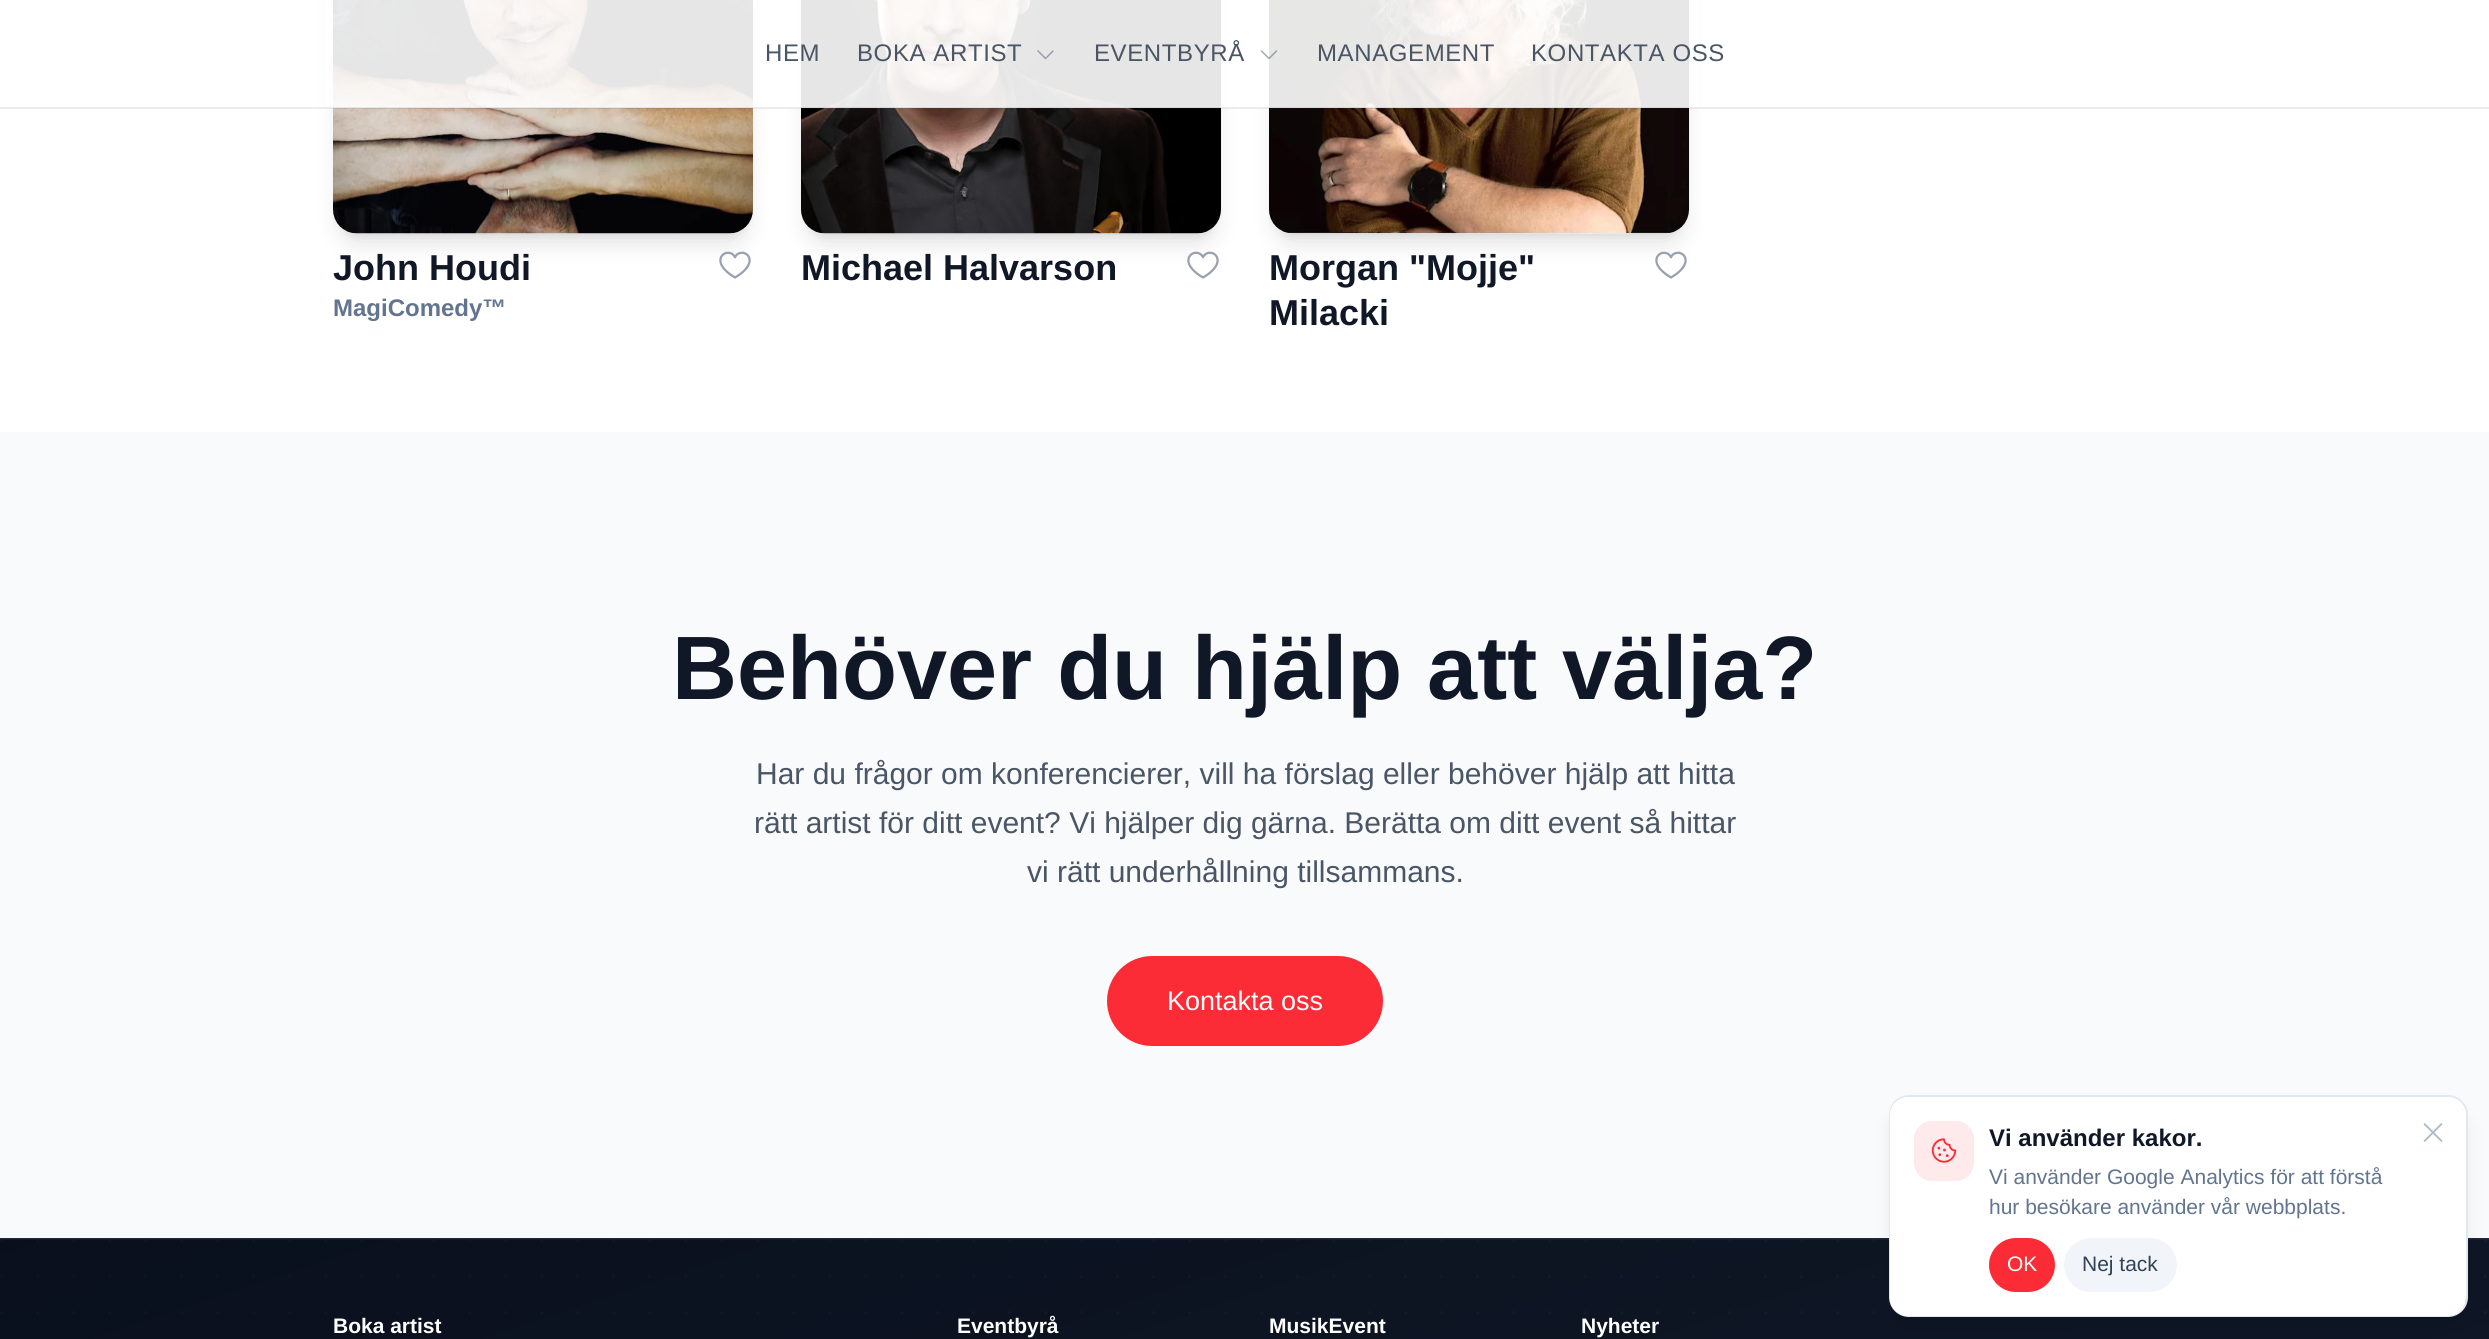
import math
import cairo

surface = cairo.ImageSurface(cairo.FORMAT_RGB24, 2489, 1339)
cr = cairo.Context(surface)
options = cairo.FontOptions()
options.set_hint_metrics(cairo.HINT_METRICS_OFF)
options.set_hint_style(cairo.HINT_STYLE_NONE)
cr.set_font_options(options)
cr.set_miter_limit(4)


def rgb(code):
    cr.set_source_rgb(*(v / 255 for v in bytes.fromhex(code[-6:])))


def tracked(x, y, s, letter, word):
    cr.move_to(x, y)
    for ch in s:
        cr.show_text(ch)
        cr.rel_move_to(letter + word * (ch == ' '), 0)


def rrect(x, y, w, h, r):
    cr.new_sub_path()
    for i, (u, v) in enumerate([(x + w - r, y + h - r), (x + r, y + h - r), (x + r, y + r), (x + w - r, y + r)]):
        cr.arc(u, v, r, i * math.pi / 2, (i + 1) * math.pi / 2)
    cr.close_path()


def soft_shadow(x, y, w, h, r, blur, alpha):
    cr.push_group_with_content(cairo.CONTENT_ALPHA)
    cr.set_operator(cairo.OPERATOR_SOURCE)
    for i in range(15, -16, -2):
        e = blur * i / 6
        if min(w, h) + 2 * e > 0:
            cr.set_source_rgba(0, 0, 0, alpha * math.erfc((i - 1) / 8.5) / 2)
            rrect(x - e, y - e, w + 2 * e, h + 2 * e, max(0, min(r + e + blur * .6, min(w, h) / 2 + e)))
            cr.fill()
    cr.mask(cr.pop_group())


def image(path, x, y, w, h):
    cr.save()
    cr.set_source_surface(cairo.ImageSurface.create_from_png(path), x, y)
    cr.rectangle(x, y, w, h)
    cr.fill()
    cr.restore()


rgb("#ffffff")
cr.paint()
rgb("#000000")
soft_shadow(339, -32, 408, 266, 18, 4.5, 0.1)
soft_shadow(338, -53, 411, 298, 20, 11, 0.1)
rgb("#e5e7eb")
rrect(333, -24, 420, 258, 24)
cr.fill()
image("img/3.png", 333, 0, 420, 234)
rgb("#000000")
soft_shadow(807, -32, 408, 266, 18, 4.5, 0.1)
soft_shadow(806, -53, 411, 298, 20, 11, 0.1)
rgb("#e5e7eb")
rrect(801, -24, 420, 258, 24)
cr.fill()
image("img/5.png", 801, 0, 420, 234)
rgb("#000000")
soft_shadow(1275, -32, 408, 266, 18, 4.5, 0.1)
soft_shadow(1274, -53, 411, 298, 20, 11, 0.1)
rgb("#e5e7eb")
rrect(1269, -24, 420, 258, 24)
cr.fill()
image("img/6.png", 1269, 0, 420, 234)
cr.set_source_rgba(1, 1, 1, 0.9)
cr.rectangle(325, 0, 1373, 108)
cr.fill()
cr.set_source_rgba(0.212, 0.255, 0.325, 0.1)
cr.rectangle(0, 107, 2489, 2)
cr.fill()
image("img/1.png", 1037, 50, 17, 10)
image("img/2.png", 1260, 50, 18, 10)
image("img/4.png", 719, 251, 32, 28)
image("img/4.png", 1187, 251, 32, 28)
image("img/4.png", 1655, 251, 32, 28)
rgb("#f9fafb")
cr.rectangle(0, 432, 2489, 806)
cr.fill()
rgb("#fb2c36")
rrect(1107, 956, 276, 90, 45)
cr.fill()
rgb("#101828")
cr.rectangle(0, 1240, 2489, 99)
cr.fill()
rgb("#1e2939")
cr.rectangle(0, 1238, 2489, 2)
cr.fill()
cr.new_path()
cr.move_to(1.5, 1240.5)
cr.line_to(2485.8, 1240.5)
cr.set_source_rgba(1, 1, 1, 0.04)
cr.set_line_width(3)
cr.set_line_cap(cairo.LINE_CAP_ROUND)
cr.set_dash([0, 36])
cr.stroke()
cr.new_path()
cr.move_to(1.5, 1276.5)
cr.line_to(2485.8, 1276.5)
rgb("#1a2131")
cr.stroke()
cr.new_path()
cr.move_to(1.5, 1312.5)
cr.line_to(2485.8, 1312.5)
cr.stroke()
gradient = cairo.LinearGradient(995, 906, 1495, 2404)
gradient.add_color_stop_rgba(0, 0.012, 0.027, 0.071, 0.5)
gradient.add_color_stop_rgba(1, 0.063, 0.094, 0.157, 0.1)
cr.set_source(gradient)
cr.rectangle(0, 1239, 2489, 100)
cr.fill()
rgb("#000000")
soft_shadow(1896, 1109, 564, 207, 12, 4.5, 0.1)
soft_shadow(1895, 1116, 567, 210, 14, 11, 0.1)
rrect(1890, 1096, 577, 220, 19)
rgb("#e2e8f0")
cr.set_line_width(2)
cr.set_line_cap(cairo.LINE_CAP_BUTT)
cr.set_dash([])
cr.stroke()
rgb("#ffffff")
rrect(1890, 1097, 576, 219, 18)
cr.fill()
rgb("#ffeaeb")
rrect(1914, 1121, 60, 60, 18)
cr.fill()
image("img/7.png", 1931, 1138, 26, 25)
rgb("#fb2c36")
rrect(1989, 1238, 66, 54, 27)
cr.fill()
rgb("#f1f5f9")
rrect(2064, 1238, 113, 54, 27)
cr.fill()
image("img/8.png", 2423, 1123, 20, 19)
cr.select_font_face("Liberation Sans")
cr.set_font_size(24)
rgb("#4a5565")
for x, y, s in [
    (765, 61, "HEM"),
    (857, 61, "BOKA ARTIST"),
    (1094, 61, "EVENTBYRÅ"),
    (1317, 61, "MANAGEMENT"),
    (1531, 61, "KONTAKTA OSS"),
]:
    tracked(x, y, s, 0.6, 0)
cr.select_font_face("Liberation Sans", cairo.FONT_SLANT_NORMAL, cairo.FONT_WEIGHT_BOLD)
cr.set_font_size(36)
rgb("#101828")
cr.move_to(333, 280)
cr.show_text("John Houdi")
cr.set_font_size(24)
rgb("#62748e")
cr.move_to(333, 316)
cr.show_text("MagiComedy™")
cr.set_font_size(36)
rgb("#101828")
for x, y, s in [
    (801, 280, "Michael Halvarson"),
    (1269, 280, "Morgan \"Mojje\""),
    (1269, 325, "Milacki"),
]:
    cr.move_to(x, y)
    cr.show_text(s)
cr.set_font_size(90)
cr.move_to(672, 699)
cr.show_text("Behöver du hjälp att välja?")
cr.select_font_face("Liberation Sans")
cr.set_font_size(30)
rgb("#4a5565")
for x, y, s in [
    (756, 784, "Har du frågor om konferencierer, vill ha förslag eller behöver hjälp att hitta"),
    (754, 833, "rätt artist för ditt event? Vi hjälper dig gärna. Berätta om ditt event så hittar"),
    (1027, 882, "vi rätt underhållning tillsammans."),
]:
    cr.move_to(x, y)
    cr.show_text(s)
cr.set_font_size(27)
rgb("#ffffff")
cr.move_to(1167, 1010)
cr.show_text("Kontakta oss")
cr.select_font_face("Liberation Sans", cairo.FONT_SLANT_NORMAL, cairo.FONT_WEIGHT_BOLD)
cr.set_font_size(21)
for x, y, s in [
    (333, 1333, "Boka artist"),
    (957, 1333, "Eventbyrå"),
    (1269, 1333, "MusikEvent"),
    (1581, 1333, "Nyheter"),
]:
    cr.move_to(x, y)
    cr.show_text(s)
cr.set_font_size(24)
rgb("#101828")
cr.move_to(1989, 1146)
cr.show_text("Vi använder kakor.")
cr.select_font_face("Liberation Sans")
cr.set_font_size(21)
rgb("#62748e")
cr.move_to(1989, 1184)
cr.show_text("Vi använder Google Analytics för att förstå")
cr.move_to(1989, 1214)
cr.show_text("hur besökare använder vår webbplats.")
rgb("#ffffff")
cr.move_to(2007, 1271)
cr.show_text("OK")
rgb("#314158")
cr.move_to(2082, 1271)
cr.show_text("Nej tack")
surface.write_to_png("page.png")
